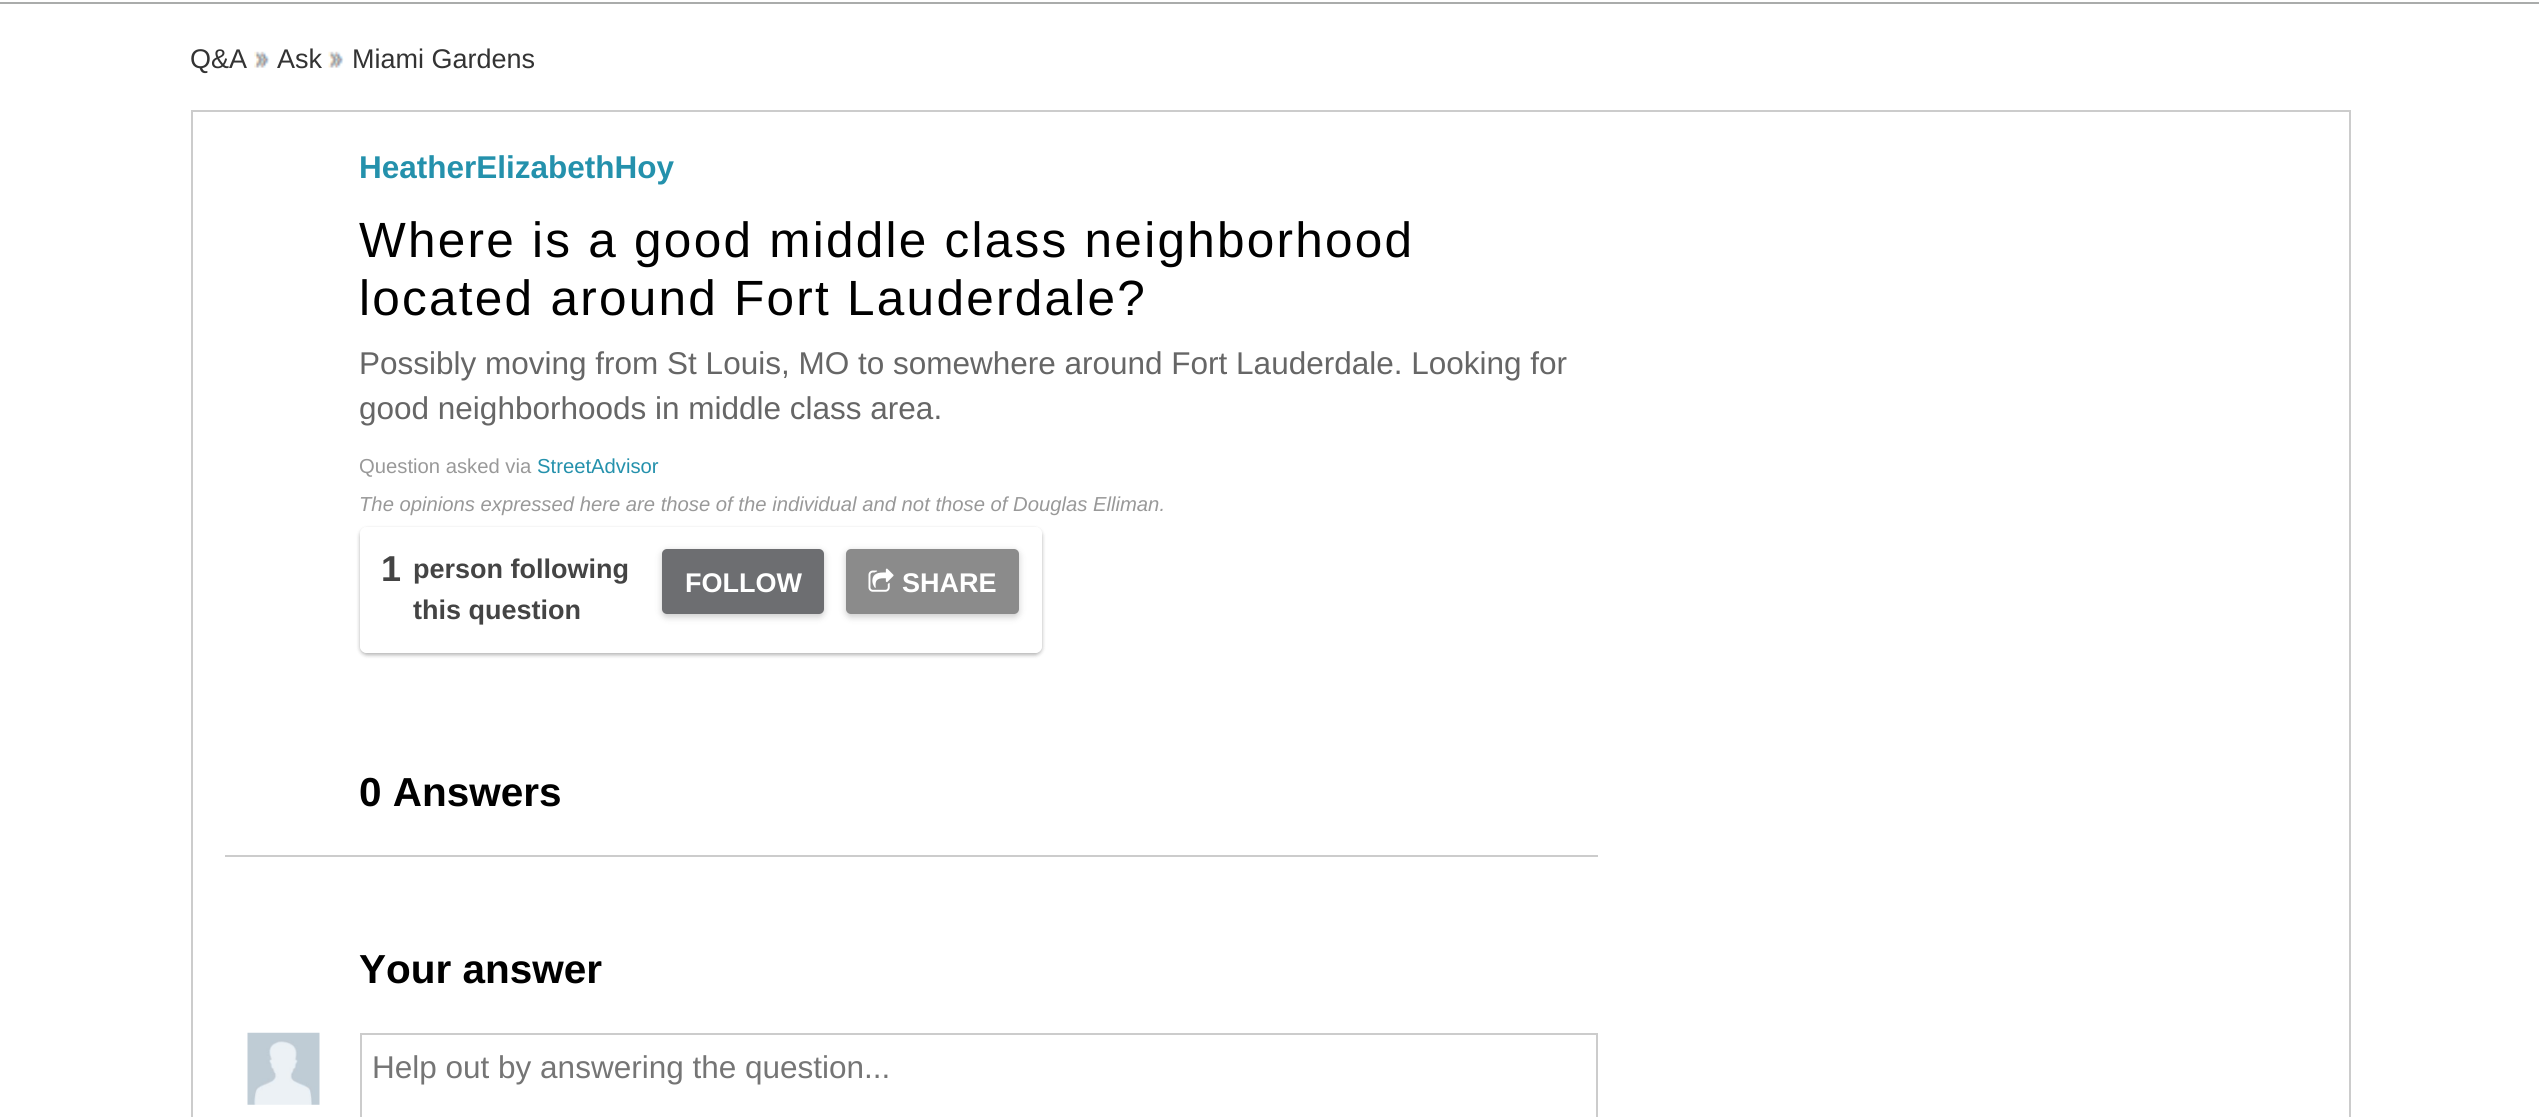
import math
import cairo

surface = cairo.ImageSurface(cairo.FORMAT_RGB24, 2539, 1117)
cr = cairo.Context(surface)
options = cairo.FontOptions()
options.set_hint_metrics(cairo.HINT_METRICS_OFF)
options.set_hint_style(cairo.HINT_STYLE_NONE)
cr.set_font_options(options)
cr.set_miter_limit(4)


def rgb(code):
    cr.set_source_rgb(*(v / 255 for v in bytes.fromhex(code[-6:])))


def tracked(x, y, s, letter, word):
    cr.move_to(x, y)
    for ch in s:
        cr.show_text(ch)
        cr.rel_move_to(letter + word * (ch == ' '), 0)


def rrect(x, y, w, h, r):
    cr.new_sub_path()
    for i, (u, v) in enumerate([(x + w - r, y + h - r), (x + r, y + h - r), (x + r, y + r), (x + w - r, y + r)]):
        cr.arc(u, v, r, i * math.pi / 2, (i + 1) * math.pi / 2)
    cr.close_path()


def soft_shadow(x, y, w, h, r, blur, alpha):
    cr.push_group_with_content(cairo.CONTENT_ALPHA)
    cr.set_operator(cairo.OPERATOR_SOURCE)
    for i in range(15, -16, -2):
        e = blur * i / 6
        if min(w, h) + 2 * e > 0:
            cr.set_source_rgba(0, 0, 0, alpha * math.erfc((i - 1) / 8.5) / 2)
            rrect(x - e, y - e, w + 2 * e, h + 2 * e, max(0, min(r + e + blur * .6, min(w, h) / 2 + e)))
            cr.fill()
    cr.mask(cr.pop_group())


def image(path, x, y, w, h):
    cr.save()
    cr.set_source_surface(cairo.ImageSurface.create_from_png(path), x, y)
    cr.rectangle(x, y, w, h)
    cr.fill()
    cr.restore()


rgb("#ffffff")
cr.paint()
rgb("#aaacab")
cr.rectangle(0, 2, 2539, 2)
cr.fill()
image("img/1.png", 254, 51, 16, 17)
image("img/2.png", 328, 51, 16, 17)
cr.rectangle(192, 111, 2158, 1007)
rgb("#cccccc")
cr.stroke()
cr.save()
cr.set_fill_rule(cairo.FILL_RULE_EVEN_ODD)
cr.new_path()
cr.move_to(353, 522)
cr.line_to(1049, 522)
cr.line_to(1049, 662)
cr.line_to(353, 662)
cr.close_path()
cr.move_to(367, 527)
cr.line_to(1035, 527)
cr.curve_to(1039, 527, 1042, 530, 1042, 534)
cr.line_to(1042, 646)
cr.curve_to(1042, 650, 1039, 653, 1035, 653)
cr.line_to(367, 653)
cr.curve_to(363, 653, 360, 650, 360, 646)
cr.line_to(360, 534)
cr.curve_to(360, 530, 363, 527, 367, 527)
cr.close_path()
cr.clip()
rgb("#000000")
soft_shadow(360, 529, 682, 126, 7, 2, 0.3)
cr.restore()
cr.set_source_rgba(1, 1, 1, 0.5)
rrect(360, 527, 682, 126, 7)
cr.fill()
rgb("#000000")
soft_shadow(662, 551, 162, 66, 5, 3.5, 0.2)
rgb("#6d6e71")
rrect(662, 549, 162, 65, 5)
cr.fill()
rgb("#000000")
soft_shadow(846, 551, 173, 66, 5, 3.5, 0.2)
rgb("#8b8b8b")
rrect(846, 549, 173, 65, 5)
cr.fill()
image("img/3.png", 868, 568, 26, 24)
rgb("#cccccc")
cr.rectangle(225, 855, 1373, 2)
cr.fill()
image("img/4.png", 247, 1032, 73, 73)
cr.rectangle(361, 1034, 1236, 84)
cr.stroke()
cr.select_font_face("Liberation Sans")
cr.set_font_size(27)
rgb("#333333")
for x, y, s in [
    (190, 68, "Q&A"),
    (277, 68, "Ask"),
    (352, 68, "Miami Gardens"),
]:
    cr.move_to(x, y)
    cr.show_text(s)
cr.select_font_face("Liberation Sans", cairo.FONT_SLANT_NORMAL, cairo.FONT_WEIGHT_BOLD)
cr.set_font_size(31.5)
rgb("#2491ac")
cr.move_to(359, 178)
cr.show_text("HeatherElizabethHoy")
cr.select_font_face("Liberation Sans")
cr.set_font_size(49.5)
rgb("#000000")
tracked(359, 257, "Where is a good middle class neighborhood", 2.25, 0)
tracked(359, 315, "located around Fort Lauderdale?", 2.25, 0)
cr.set_font_size(31.5)
rgb("#666666")
cr.move_to(359, 374)
cr.show_text("Possibly moving from St Louis, MO to somewhere around Fort Lauderdale. Looking for")
cr.move_to(359, 419)
cr.show_text("good neighborhoods in middle class area.")
cr.set_font_size(20.25)
rgb("#999999")
cr.move_to(359, 473)
cr.show_text("Question asked via")
rgb("#2491ac")
cr.move_to(537, 473)
cr.show_text("StreetAdvisor")
cr.select_font_face("Liberation Sans", cairo.FONT_SLANT_ITALIC)
rgb("#999999")
cr.move_to(359, 511)
cr.show_text("The opinions expressed here are those of the individual and not those of Douglas Elliman.")
cr.select_font_face("Liberation Sans", cairo.FONT_SLANT_NORMAL, cairo.FONT_WEIGHT_BOLD)
cr.set_font_size(36)
rgb("#444444")
cr.move_to(381, 581)
cr.show_text("1")
cr.set_font_size(27)
cr.move_to(413, 578)
cr.show_text("person following")
cr.move_to(413, 619)
cr.show_text("this question")
rgb("#ffffff")
cr.move_to(685, 592)
cr.show_text("FOLLOW")
cr.move_to(902, 592)
cr.show_text("SHARE")
cr.set_font_size(40.5)
rgb("#000000")
cr.move_to(359, 806)
cr.show_text("0 Answers")
cr.move_to(359, 983)
cr.show_text("Your answer")
cr.select_font_face("Liberation Sans")
cr.set_font_size(31.5)
rgb("#757575")
cr.move_to(372, 1078)
cr.show_text("Help out by answering the question...")
surface.write_to_png("page.png")
